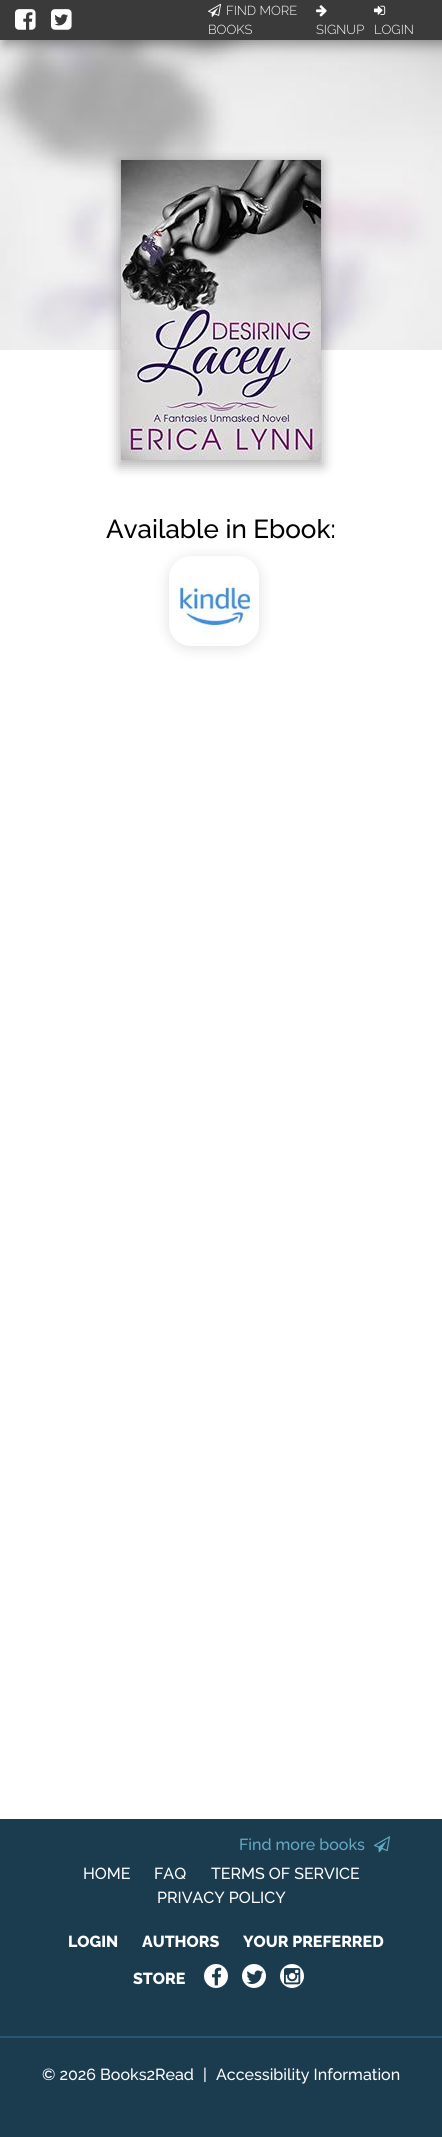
import math
import cairo

surface = cairo.ImageSurface(cairo.FORMAT_RGB24, 442, 2137)
cr = cairo.Context(surface)
options = cairo.FontOptions()
options.set_hint_metrics(cairo.HINT_METRICS_OFF)
options.set_hint_style(cairo.HINT_STYLE_NONE)
cr.set_font_options(options)
cr.set_miter_limit(4)


def rgb(code):
    cr.set_source_rgb(*(v / 255 for v in bytes.fromhex(code[-6:])))


def rrect(x, y, w, h, r):
    cr.new_sub_path()
    for i, (u, v) in enumerate([(x + w - r, y + h - r), (x + r, y + h - r), (x + r, y + r), (x + w - r, y + r)]):
        cr.arc(u, v, r, i * math.pi / 2, (i + 1) * math.pi / 2)
    cr.close_path()


def soft_shadow(x, y, w, h, r, blur, alpha):
    cr.push_group_with_content(cairo.CONTENT_ALPHA)
    cr.set_operator(cairo.OPERATOR_SOURCE)
    for i in range(15, -16, -2):
        e = blur * i / 6
        if min(w, h) + 2 * e > 0:
            cr.set_source_rgba(0, 0, 0, alpha * math.erfc((i - 1) / 8.5) / 2)
            rrect(x - e, y - e, w + 2 * e, h + 2 * e, max(0, min(r + e + blur * .6, min(w, h) / 2 + e)))
            cr.fill()
    cr.mask(cr.pop_group())


def image(path, x, y, w, h):
    cr.save()
    cr.set_source_surface(cairo.ImageSurface.create_from_png(path), x, y)
    cr.rectangle(x, y, w, h)
    cr.fill()
    cr.restore()


rgb("#ffffff")
cr.paint()
image("img/1.png", 0, 40, 442, 310)
rgb("#000000")
soft_shadow(4, 4, 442, 40, 0, 7, 0.4)
rgb("#3a3a3a")
cr.rectangle(0, 0, 442, 40)
cr.fill()
image("img/2.png", 15, 9, 21, 21)
image("img/3.png", 51, 9, 21, 21)
image("img/4.png", 208, 3, 13, 14)
image("img/5.png", 316, 5, 11, 12)
image("img/6.png", 374, 5, 12, 10)
rgb("#000000")
soft_shadow(119, 162, 204, 304, 0, 6, 0.3)
image("img/7.png", 121, 160, 200, 300)
soft_shadow(167, 556, 94, 94, 24, 6, 0.1)
rgb("#ffffff")
rrect(169, 556, 90, 90, 22)
cr.fill()
image("img/8.png", 179, 578, 80, 57)
rgb("#1b3b4f")
cr.rectangle(0, 1819, 442, 318)
cr.fill()
image("img/9.png", 374, 1836, 16, 17)
rgb("#ffffff")
cr.arc(216, 1976, 12, 0, 2 * math.pi)
cr.fill()
image("img/10.png", 212, 1967, 10, 19)
cr.arc(254, 1976, 12, 0, 2 * math.pi)
cr.fill()
image("img/11.png", 246, 1970, 17, 14)
cr.arc(292, 1976, 12, 0, 2 * math.pi)
cr.fill()
image("img/12.png", 284, 1968, 17, 17)
rgb("#285775")
cr.rectangle(0, 2036, 442, 2)
cr.fill()
cr.select_font_face("Raleway Light")
cr.set_font_size(13)
rgb("#ffffff")
for x, y, s in [
    (226, 15, "FIND MORE"),
    (208, 34, "BOOKS"),
    (316, 34, "SIGNUP"),
    (374, 34, "LOGIN"),
]:
    cr.move_to(x, y)
    cr.show_text(s)
cr.select_font_face("Raleway Medium")
cr.set_font_size(26)
rgb("#000000")
cr.move_to(106, 538)
cr.show_text("Available in Ebook:")
cr.set_font_size(16)
rgb("#63aac5")
cr.move_to(239, 1850)
cr.show_text("Find more books")
rgb("#ffffff")
for x, y, s in [
    (83, 1879, "HOME"),
    (154, 1879, "FAQ"),
    (211, 1879, "TERMS OF SERVICE"),
    (157, 1903, "PRIVACY POLICY"),
]:
    cr.move_to(x, y)
    cr.show_text(s)
cr.select_font_face("Raleway ExtraBold")
for x, y, s in [
    (68, 1947, "LOGIN"),
    (142, 1947, "AUTHORS"),
    (243, 1947, "YOUR PREFERRED"),
    (133, 1984, "STORE"),
]:
    cr.move_to(x, y)
    cr.show_text(s)
cr.select_font_face("Raleway Medium")
for x, y, s in [
    (42, 2080, "© 2026 Books2Read"),
    (203, 2080, "|"),
    (216, 2080, "Accessibility Information"),
]:
    cr.move_to(x, y)
    cr.show_text(s)
surface.write_to_png("page.png")
